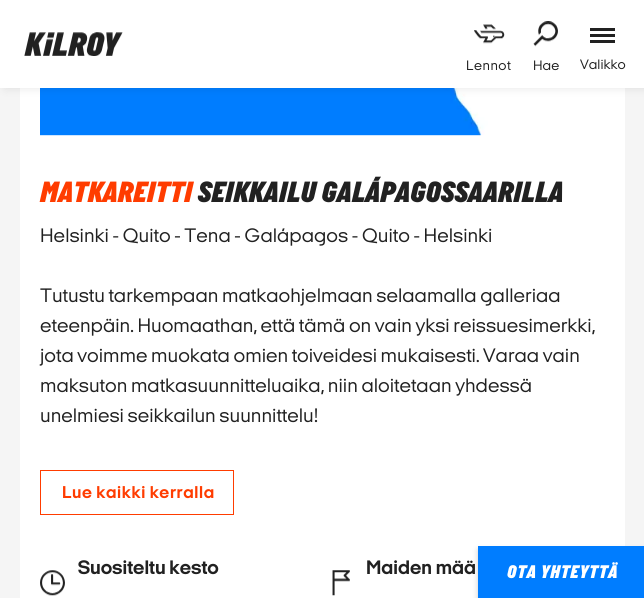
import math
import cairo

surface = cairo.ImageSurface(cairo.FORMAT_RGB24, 644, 598)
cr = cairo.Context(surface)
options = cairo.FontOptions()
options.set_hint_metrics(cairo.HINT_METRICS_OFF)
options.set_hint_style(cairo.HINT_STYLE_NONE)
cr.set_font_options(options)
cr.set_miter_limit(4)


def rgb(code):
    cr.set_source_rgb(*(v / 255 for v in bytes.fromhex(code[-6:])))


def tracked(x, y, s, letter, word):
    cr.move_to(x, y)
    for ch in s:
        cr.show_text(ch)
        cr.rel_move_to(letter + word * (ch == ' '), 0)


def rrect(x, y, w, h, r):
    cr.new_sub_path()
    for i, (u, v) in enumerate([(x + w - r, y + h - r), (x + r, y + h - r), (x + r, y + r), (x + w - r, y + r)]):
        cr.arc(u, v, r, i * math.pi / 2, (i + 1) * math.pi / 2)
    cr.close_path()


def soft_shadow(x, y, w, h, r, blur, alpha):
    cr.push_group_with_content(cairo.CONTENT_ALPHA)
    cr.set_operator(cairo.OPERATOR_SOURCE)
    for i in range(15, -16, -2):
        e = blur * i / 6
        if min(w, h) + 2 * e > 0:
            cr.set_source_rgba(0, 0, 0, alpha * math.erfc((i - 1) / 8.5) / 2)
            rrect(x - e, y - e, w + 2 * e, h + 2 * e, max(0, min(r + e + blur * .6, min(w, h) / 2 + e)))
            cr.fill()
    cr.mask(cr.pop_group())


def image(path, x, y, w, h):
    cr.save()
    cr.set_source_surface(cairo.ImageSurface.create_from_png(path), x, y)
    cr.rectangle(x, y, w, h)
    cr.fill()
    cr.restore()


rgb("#f5f5f5")
cr.paint()
rgb("#ffffff")
cr.rectangle(20, 88, 605, 510)
cr.fill()
image("img/4.png", 40, 88, 513, 48)
rgb("#000000")
soft_shadow(5, 0, 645, 88, 0, 5, 0.1)
rgb("#ffffff")
cr.rectangle(0, 0, 644, 88)
cr.fill()
image("img/1.png", 24, 32, 99, 24)
image("img/2.png", 474, 24, 31, 20)
image("img/3.png", 533, 21, 25, 26)
for x, y, w, h, color in [
    (590, 34, 25, 3, "#212121"),
    (590, 28, 25, 3, "#212121"),
    (590, 40, 25, 3, "#212121"),
]:
    rgb(color)
    cr.rectangle(x, y, w, h)
    cr.fill()
cr.rectangle(40.5, 470.5, 193, 44)
rgb("#ff3c00")
cr.set_line_width(1)
cr.stroke()
image("img/5.png", 40, 570, 25, 26)
image("img/6.png", 332, 570, 18, 26)
rgb("#000000")
soft_shadow(478, 550, 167, 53, 0, 3, 0.2)
rgb("#007dff")
cr.rectangle(478, 546, 166, 52)
cr.fill()
cr.select_font_face("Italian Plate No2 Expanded")
cr.set_font_size(14)
rgb("#212121")
tracked(466, 70, "Lennot", 0.5, 0)
cr.move_to(533, 70)
cr.show_text("Hae")
cr.move_to(580, 69)
cr.show_text("Valikko")
cr.select_font_face("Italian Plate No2 Black", cairo.FONT_SLANT_ITALIC)
cr.set_font_size(30)
rgb("#ff3c00")
cr.move_to(40, 202)
cr.show_text("MATKAREITTI")
rgb("#212121")
cr.move_to(198, 202)
cr.show_text("SEIKKAILU GALÁPAGOSSAARILLA")
cr.select_font_face("Italian Plate No2 Expanded")
cr.set_font_size(20)
for x, y, s in [
    (40, 242, "Helsinki - Quito - Tena - Galápagos - Quito - Helsinki"),
    (40, 302, "Tutustu tarkempaan matkaohjelmaan selaamalla galleriaa"),
    (40, 332, "eteenpäin. Huomaathan, että tämä on vain yksi reissuesimerkki,"),
    (40, 362, "jota voimme muokata omien toiveidesi mukaisesti. Varaa vain"),
    (40, 392, "maksuton matkasuunnitteluaika, niin aloitetaan yhdessä"),
    (40, 422, "unelmiesi seikkailun suunnittelu!"),
]:
    cr.move_to(x, y)
    cr.show_text(s)
cr.select_font_face("Italian Plate No2 Expanded", cairo.FONT_SLANT_NORMAL, cairo.FONT_WEIGHT_BOLD)
cr.set_font_size(17.5)
rgb("#ff3c00")
tracked(62, 498, "Lue kaikki kerralla", 0.6, 0)
cr.set_font_size(20)
rgb("#212121")
cr.move_to(78, 574)
cr.show_text("Suositeltu kesto")
cr.move_to(366, 574)
cr.show_text("Maiden mää")
cr.select_font_face("Italian Plate No2 Black", cairo.FONT_SLANT_ITALIC)
cr.set_font_size(18.75)
rgb("#ffffff")
tracked(507, 578, "OTA YHTEYTTÄ", 0.6, 0)
surface.write_to_png("page.png")
